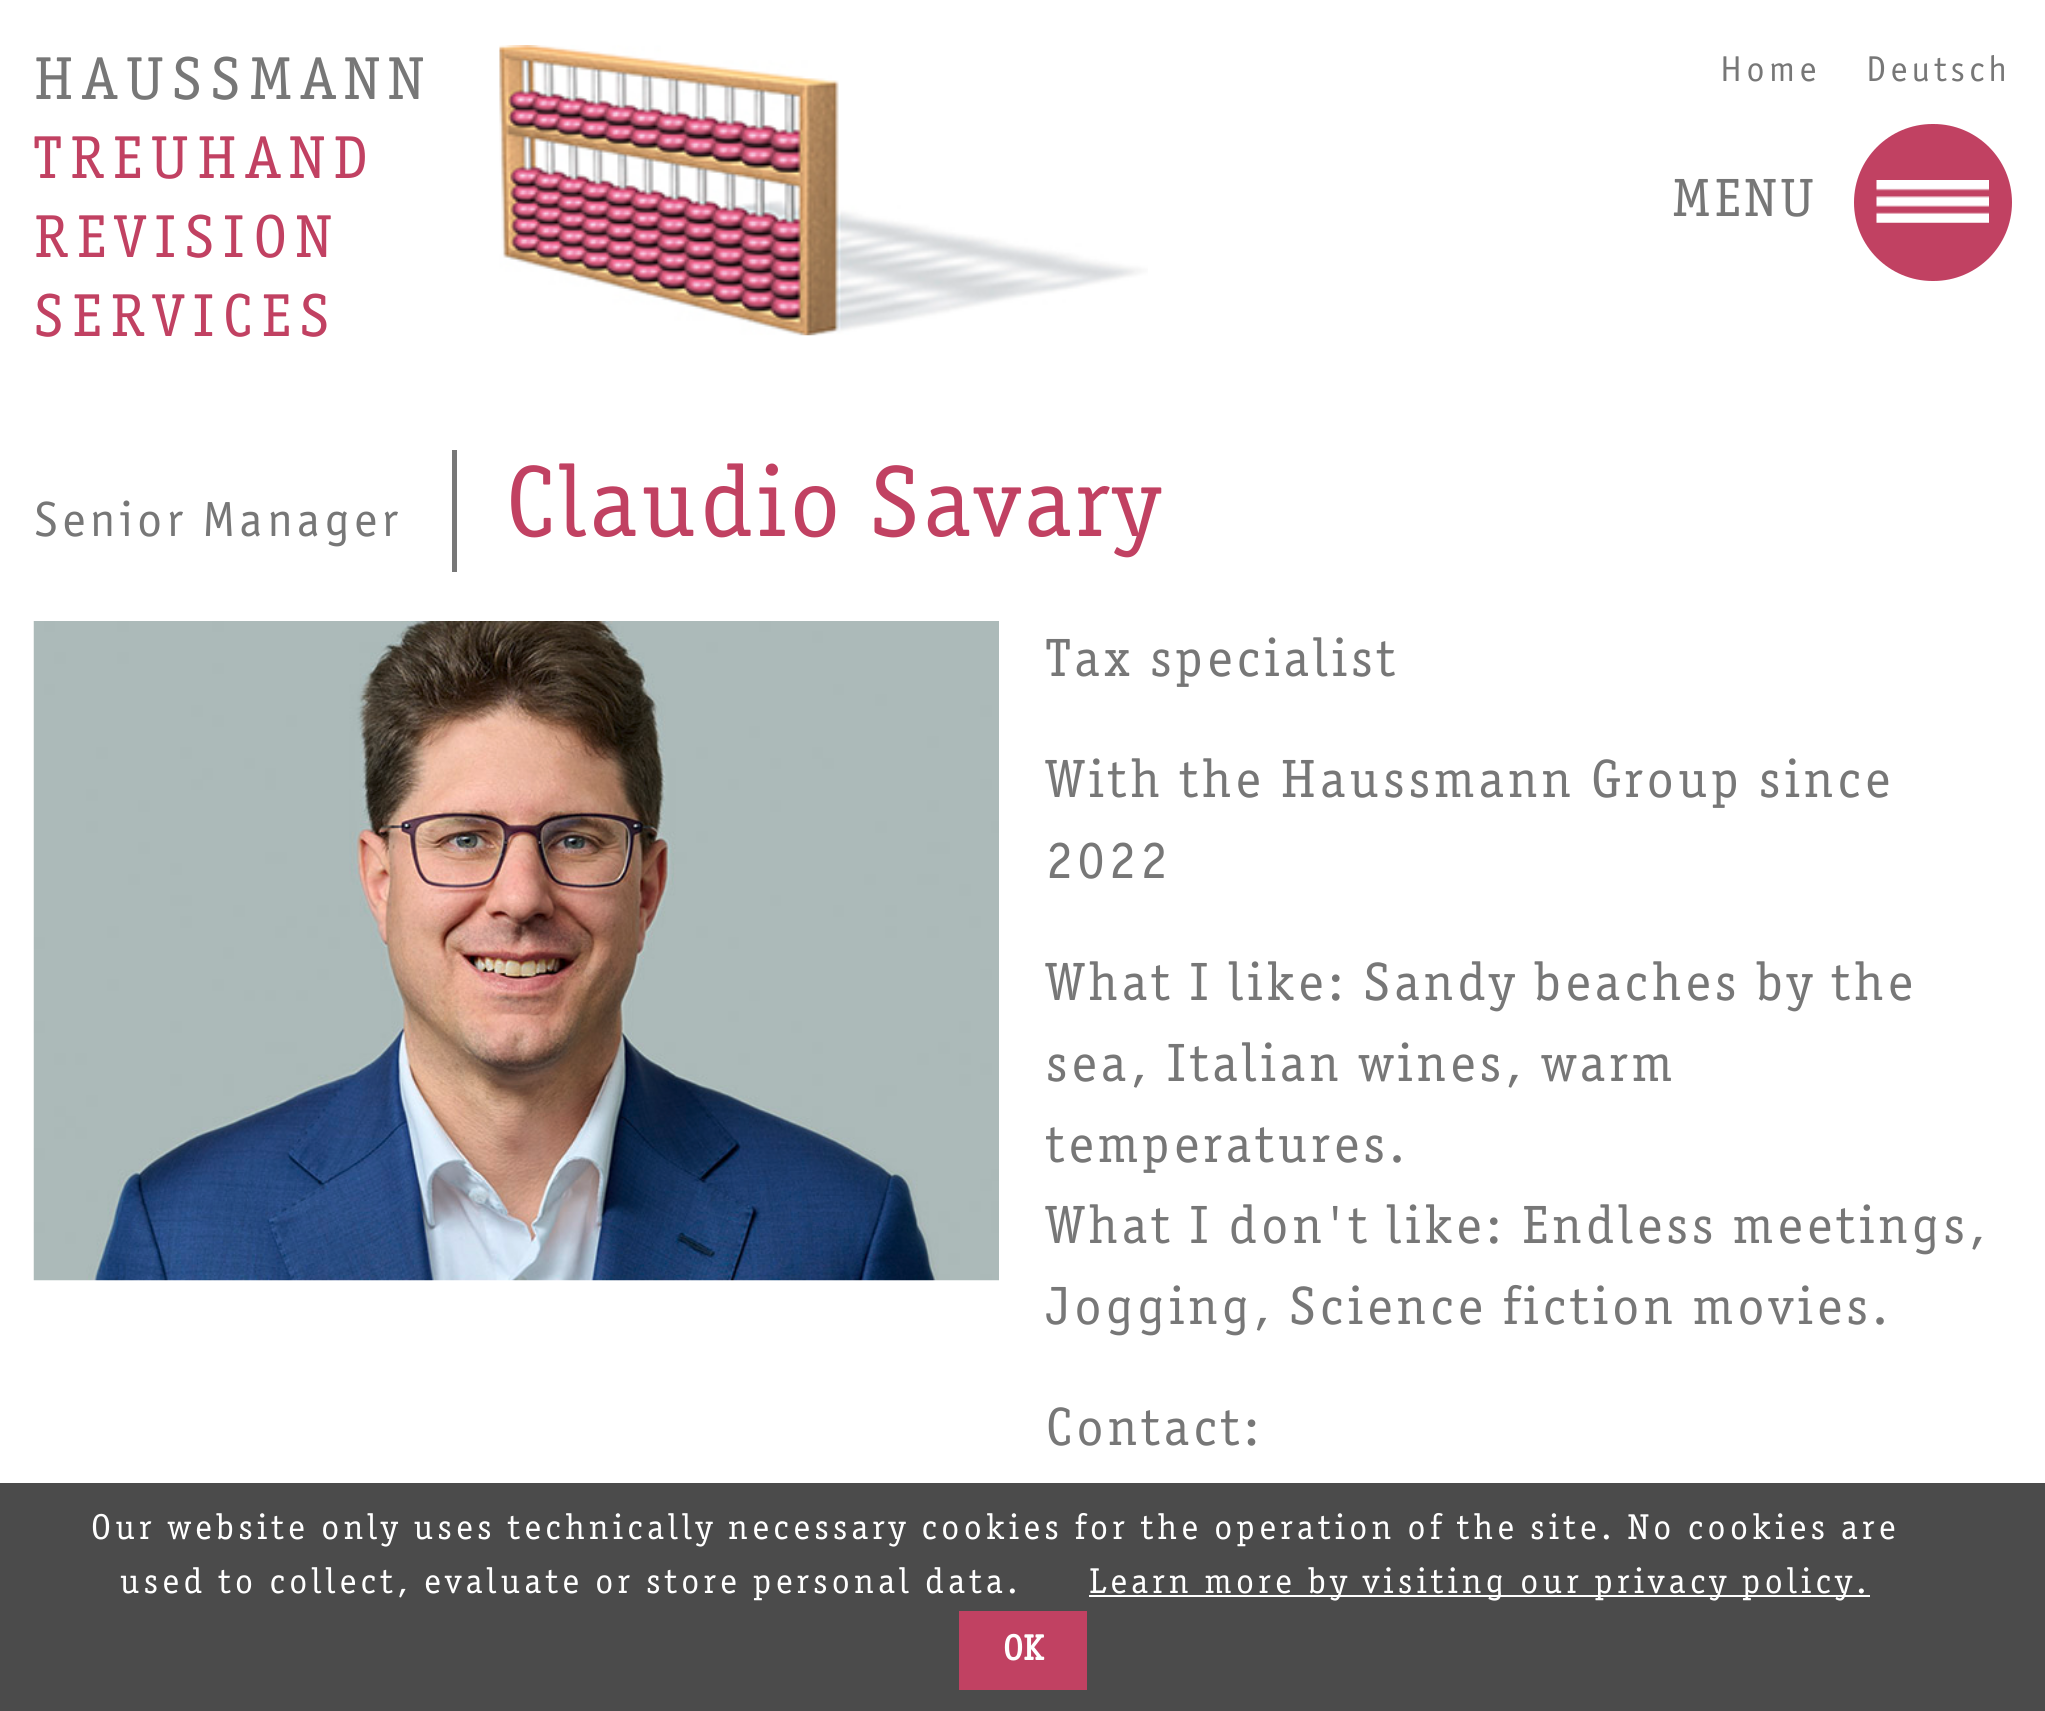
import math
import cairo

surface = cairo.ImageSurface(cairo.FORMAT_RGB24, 2045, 1711)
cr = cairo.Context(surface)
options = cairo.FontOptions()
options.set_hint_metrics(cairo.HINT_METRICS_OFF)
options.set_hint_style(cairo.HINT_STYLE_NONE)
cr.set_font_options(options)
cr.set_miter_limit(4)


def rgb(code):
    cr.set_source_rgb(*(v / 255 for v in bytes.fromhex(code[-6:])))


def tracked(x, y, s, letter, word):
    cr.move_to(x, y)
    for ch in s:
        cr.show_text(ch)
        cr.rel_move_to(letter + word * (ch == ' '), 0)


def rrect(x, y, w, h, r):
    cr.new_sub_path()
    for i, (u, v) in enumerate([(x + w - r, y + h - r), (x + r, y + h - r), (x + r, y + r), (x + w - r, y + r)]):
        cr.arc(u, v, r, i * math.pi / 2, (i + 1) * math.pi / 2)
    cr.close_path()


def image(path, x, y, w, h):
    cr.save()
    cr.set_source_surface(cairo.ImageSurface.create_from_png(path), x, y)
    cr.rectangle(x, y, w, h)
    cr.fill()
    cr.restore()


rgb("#ffffff")
cr.paint()
image("img/1.png", 499, 45, 649, 291)
rgb("#c14162")
rrect(1854, 124, 158, 157, 78.5)
cr.fill()
image("img/2.png", 1876, 180, 113, 43)
rgb("#777777")
cr.rectangle(452, 450, 5, 122)
cr.fill()
image("img/3.png", 33, 621, 966, 660)
for x, y, w, h, color in [
    (0, 1483, 2045, 228, "#4b4b4b"),
    (1089, 1595, 781, 2, "#ffffff"),
    (959, 1611, 128, 79, "#c14162"),
]:
    rgb(color)
    cr.rectangle(x, y, w, h)
    cr.fill()
cr.select_font_face("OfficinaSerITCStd")
cr.set_font_size(60.75)
rgb("#777777")
tracked(34, 99, "HAUSSMANN", 9, 0)
rgb("#c14162")
for x, y, s in [
    (34, 178, "TREUHAND"),
    (34, 257, "REVISION"),
    (34, 336, "SERVICES"),
]:
    tracked(x, y, s, 9, 0)
cr.select_font_face("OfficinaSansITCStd")
cr.set_font_size(36)
rgb("#777777")
tracked(1720, 81, "Home", 4.5, 0)
tracked(1866, 81, "Deutsch", 4.5, 0)
cr.select_font_face("OfficinaSerITCStd")
cr.set_font_size(54)
tracked(1672, 216, "MENU", 4.5, 0)
cr.select_font_face("OfficinaSansITCStd")
cr.set_font_size(49.5)
tracked(34, 536, "Senior Manager", 4.5, 0)
cr.select_font_face("OfficinaSerITCStd")
cr.set_font_size(101.25)
rgb("#c14162")
tracked(506, 536, "Claudio Savary", 4.5, 0)
cr.set_font_size(54)
rgb("#777777")
for x, y, s in [
    (1046, 676, "Tax specialist"),
    (1046, 797, "With the Haussmann Group since"),
    (1046, 878, "2022"),
    (1046, 1000, "What I like: Sandy beaches by the"),
    (1046, 1081, "sea, Italian wines, warm"),
    (1046, 1162, "temperatures."),
    (1046, 1243, "What I don't like: Endless meetings,"),
    (1046, 1324, "Jogging, Science fiction movies."),
    (1046, 1445, "Contact:"),
]:
    tracked(x, y, s, 4.5, 0)
cr.set_font_size(36)
rgb("#ffffff")
for x, y, s in [
    (91, 1539, "Our website only uses technically necessary cookies for the operation of the site. No cookies are"),
    (120, 1593, "used to collect, evaluate or store personal data."),
    (1089, 1593, "Learn more by visiting our privacy policy."),
]:
    tracked(x, y, s, 4.5, 0)
cr.select_font_face("OfficinaSerITCStd", cairo.FONT_SLANT_NORMAL, cairo.FONT_WEIGHT_BOLD)
cr.move_to(1003, 1660)
cr.show_text("OK")
surface.write_to_png("page.png")
